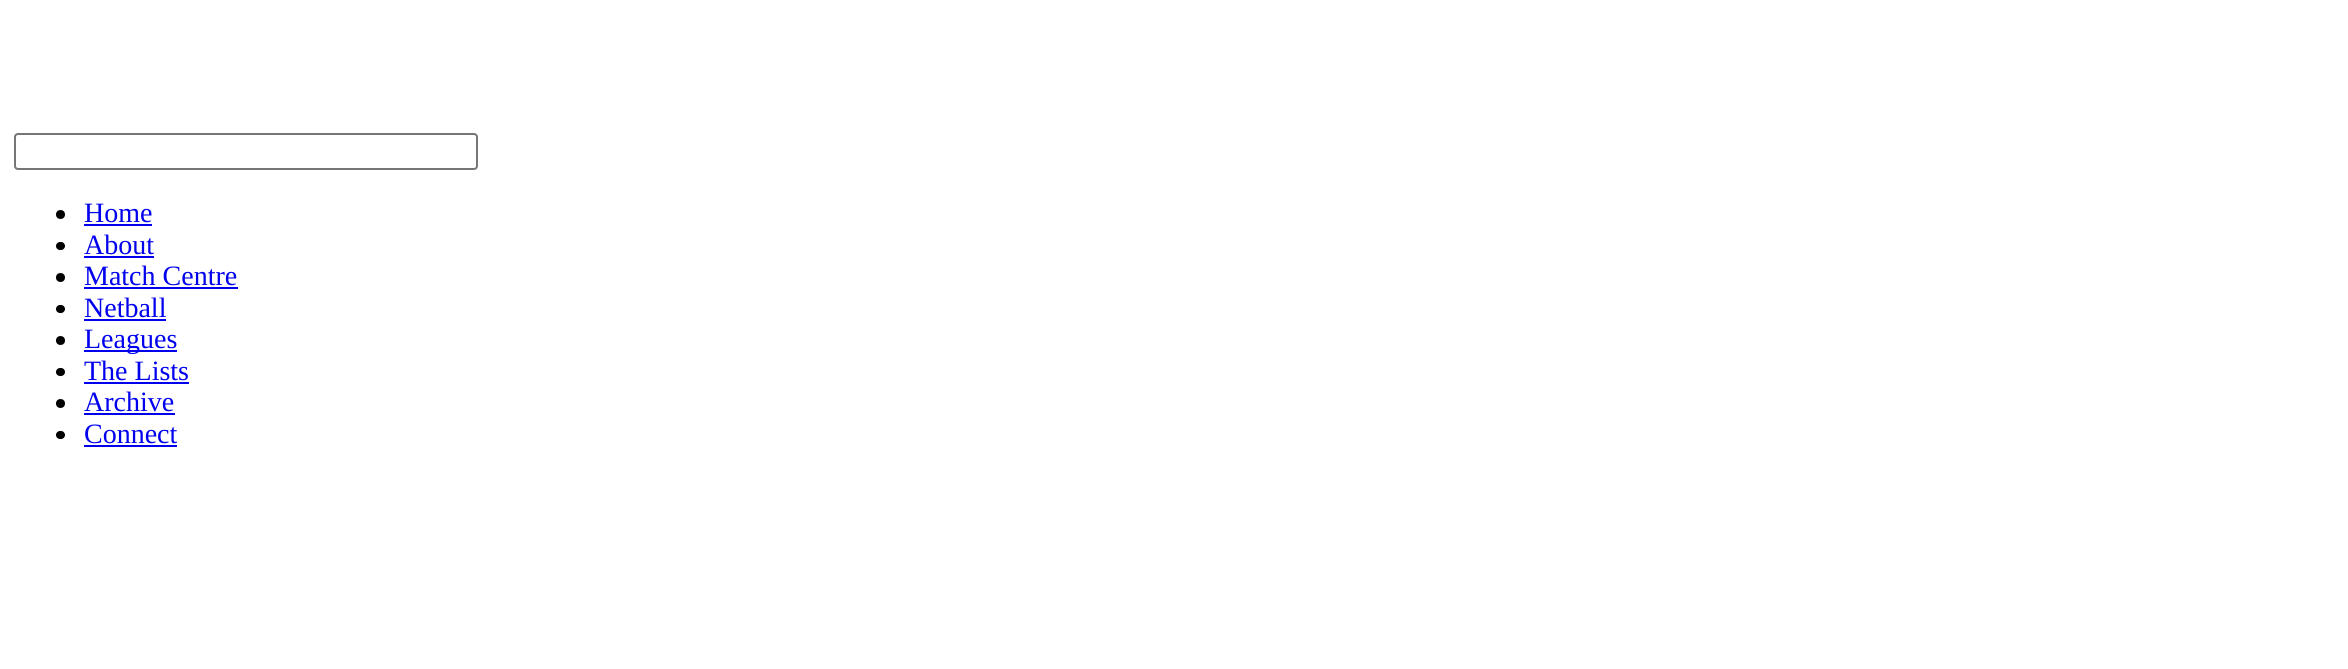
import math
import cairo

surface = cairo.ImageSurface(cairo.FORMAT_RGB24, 2348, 669)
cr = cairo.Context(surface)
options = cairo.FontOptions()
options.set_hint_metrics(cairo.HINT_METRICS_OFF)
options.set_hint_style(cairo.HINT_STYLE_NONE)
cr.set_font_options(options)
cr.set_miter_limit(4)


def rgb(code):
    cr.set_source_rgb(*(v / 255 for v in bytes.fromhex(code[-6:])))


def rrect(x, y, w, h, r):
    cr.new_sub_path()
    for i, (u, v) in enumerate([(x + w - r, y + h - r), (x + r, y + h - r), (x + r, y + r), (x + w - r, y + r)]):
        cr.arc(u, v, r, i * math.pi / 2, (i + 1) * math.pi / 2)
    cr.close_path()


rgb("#ffffff")
cr.paint()
rrect(15, 134, 462, 35, 3)
rgb("#767676")
cr.stroke()
rgb("#000000")
cr.arc(60.5, 214.5, 4.5, 0, 2 * math.pi)
cr.fill()
rgb("#0000ee")
cr.rectangle(84, 224, 68, 2)
cr.fill()
rgb("#000000")
rrect(56, 242, 9, 8, 4)
cr.fill()
rgb("#0000ee")
cr.rectangle(84, 256, 70, 2)
cr.fill()
rgb("#000000")
cr.arc(60.5, 277.5, 4.5, 0, 2 * math.pi)
cr.fill()
rgb("#0000ee")
cr.rectangle(84, 287, 154, 2)
cr.fill()
rgb("#000000")
rrect(56, 305, 9, 8, 4)
cr.fill()
rgb("#0000ee")
cr.rectangle(84, 319, 82, 2)
cr.fill()
rgb("#000000")
cr.arc(60.5, 340.5, 4.5, 0, 2 * math.pi)
cr.fill()
rgb("#0000ee")
cr.rectangle(84, 350, 93, 2)
cr.fill()
rgb("#000000")
rrect(56, 368, 9, 8, 4)
cr.fill()
rgb("#0000ee")
cr.rectangle(84, 382, 105, 2)
cr.fill()
rgb("#000000")
cr.arc(60.5, 403.5, 4.5, 0, 2 * math.pi)
cr.fill()
rgb("#0000ee")
cr.rectangle(84, 413, 91, 2)
cr.fill()
rgb("#000000")
rrect(56, 431, 9, 8, 4)
cr.fill()
rgb("#0000ee")
cr.rectangle(84, 445, 93, 2)
cr.fill()
cr.select_font_face("Liberation Serif")
cr.set_font_size(28)
for x, y, s in [
    (84, 222, "Home"),
    (84, 254, "About"),
    (84, 285, "Match Centre"),
    (84, 317, "Netball"),
    (84, 348, "Leagues"),
    (84, 380, "The Lists"),
    (84, 411, "Archive"),
    (84, 443, "Connect"),
]:
    cr.move_to(x, y)
    cr.show_text(s)
surface.write_to_png("page.png")
